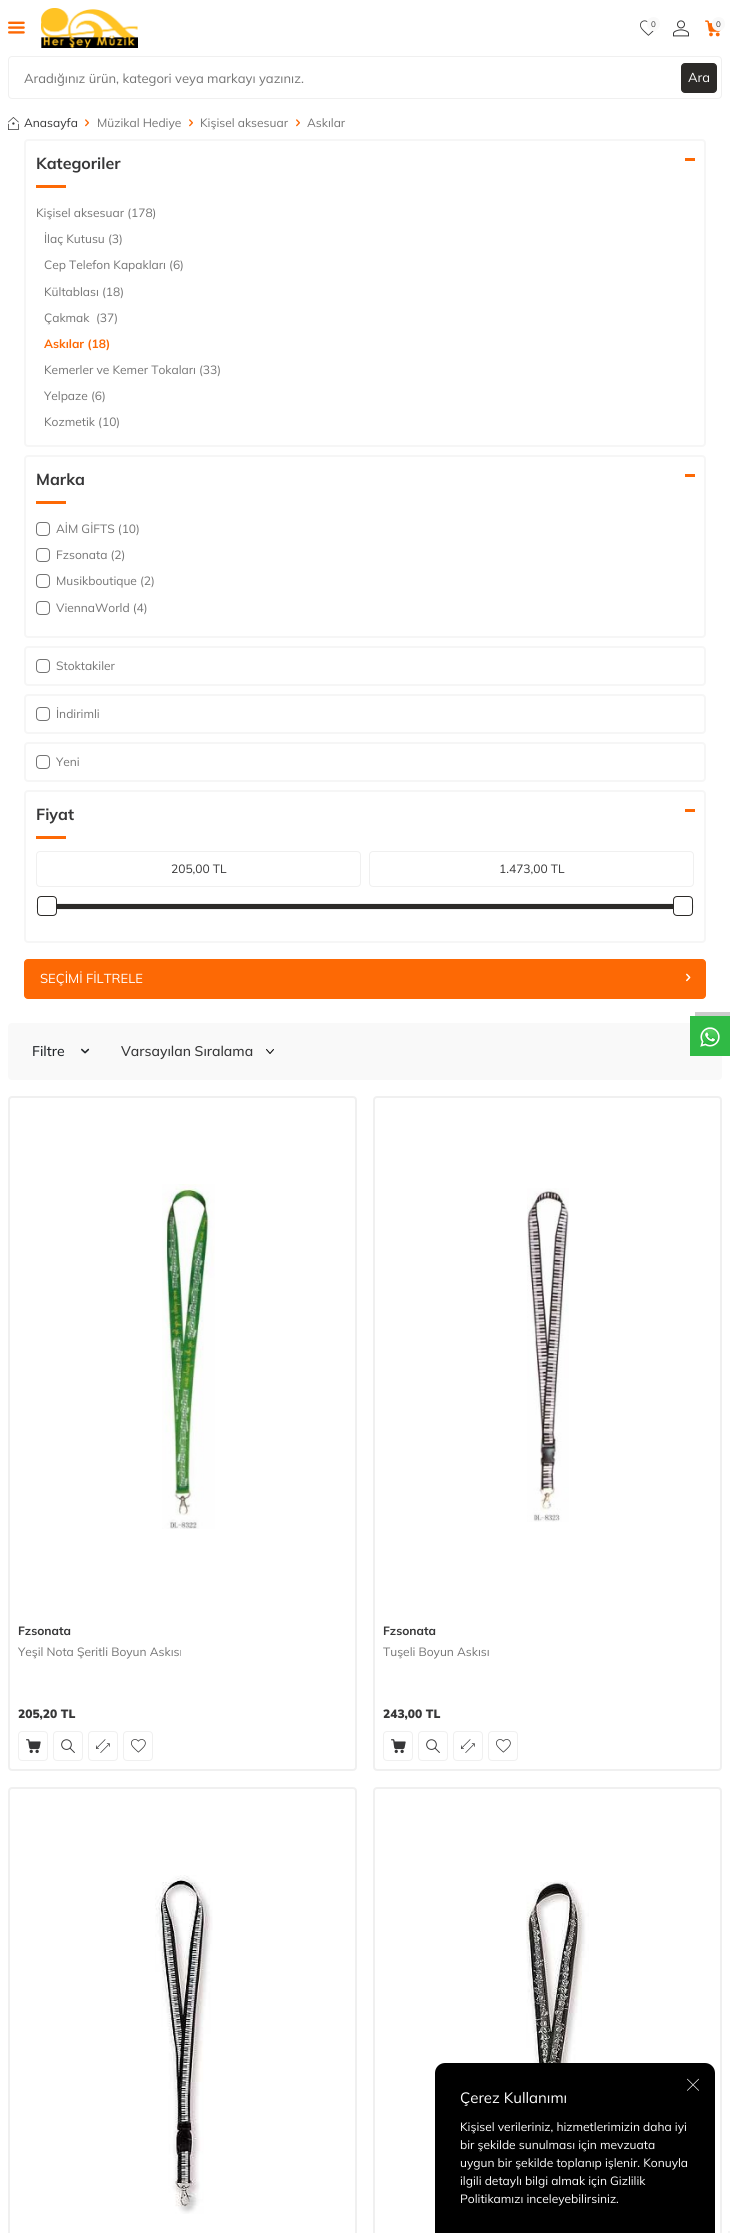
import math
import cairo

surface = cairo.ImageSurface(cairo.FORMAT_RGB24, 730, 2233)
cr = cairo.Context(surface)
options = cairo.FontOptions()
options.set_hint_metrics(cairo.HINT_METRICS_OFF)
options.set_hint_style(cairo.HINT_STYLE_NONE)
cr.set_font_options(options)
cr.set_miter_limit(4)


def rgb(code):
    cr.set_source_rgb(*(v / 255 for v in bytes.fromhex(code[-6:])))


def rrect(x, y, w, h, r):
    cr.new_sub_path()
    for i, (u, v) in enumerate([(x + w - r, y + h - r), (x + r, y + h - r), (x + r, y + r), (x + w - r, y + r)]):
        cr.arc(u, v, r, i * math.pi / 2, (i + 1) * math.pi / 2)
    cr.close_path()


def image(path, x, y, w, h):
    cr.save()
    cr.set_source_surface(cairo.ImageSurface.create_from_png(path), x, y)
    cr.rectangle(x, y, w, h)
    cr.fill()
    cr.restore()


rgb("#ffffff")
cr.paint()
image("img/1.png", 8, 21, 17, 13)
image("img/2.png", 41, 8, 97, 40)
image("img/3.png", 640, 20, 15, 16)
rgb("#f9f9f9")
rrect(647.5, 17.5, 12, 13, 6)
cr.fill_preserve()
cr.set_line_width(1)
cr.stroke()
image("img/4.png", 673, 20, 16, 17)
image("img/5.png", 705, 20, 16, 17)
rrect(712.5, 17.5, 12, 13, 6)
cr.fill_preserve()
cr.stroke()
rrect(8.5, 56.5, 713, 42, 3.5)
rgb("#f0f0f0")
cr.stroke()
rgb("#2c2a28")
rrect(681.5, 63.5, 35, 29, 3.5)
cr.fill_preserve()
cr.stroke()
image("img/6.png", 8, 117, 11, 13)
image("img/7.png", 85, 119, 4, 8)
image("img/7.png", 189, 119, 4, 8)
image("img/7.png", 296, 119, 4, 8)
rrect(25, 140, 680, 306, 3)
rgb("#f6f6f6")
cr.set_line_width(2)
cr.stroke()
rgb("#fd6905")
cr.rectangle(685, 158, 10, 3)
cr.fill()
cr.rectangle(36, 185, 30, 3)
cr.fill()
rrect(25, 456, 680, 181, 3)
rgb("#f6f6f6")
cr.stroke()
rgb("#fd6905")
cr.rectangle(685, 474, 10, 3)
cr.fill()
cr.rectangle(36, 501, 30, 3)
cr.fill()
rrect(36.5, 522.5, 13, 13, 3.5)
rgb("#747474")
cr.set_line_width(1)
cr.stroke()
rrect(36.5, 548.5, 13, 13, 3.5)
cr.stroke()
rrect(36.5, 574.5, 13, 13, 3.5)
cr.stroke()
rrect(36.5, 601.5, 13, 13, 3.5)
cr.stroke()
rrect(25, 647, 680, 38, 3)
rgb("#f6f6f6")
cr.set_line_width(2)
cr.stroke()
rrect(36.5, 659.5, 13, 13, 3.5)
rgb("#747474")
cr.set_line_width(1)
cr.stroke()
rrect(25, 695, 680, 38, 3)
rgb("#f6f6f6")
cr.set_line_width(2)
cr.stroke()
rrect(36.5, 707.5, 13, 13, 3.5)
rgb("#747474")
cr.set_line_width(1)
cr.stroke()
rrect(25, 743, 680, 38, 3)
rgb("#f6f6f6")
cr.set_line_width(2)
cr.stroke()
rrect(36.5, 755.5, 13, 13, 3.5)
rgb("#747474")
cr.set_line_width(1)
cr.stroke()
rrect(25, 791, 680, 151, 3)
rgb("#f6f6f6")
cr.set_line_width(2)
cr.stroke()
rgb("#fd6905")
cr.rectangle(685, 809, 10, 3)
cr.fill()
cr.rectangle(36, 836, 30, 3)
cr.fill()
rrect(36.5, 851.5, 324, 35, 3.5)
rgb("#f0f0f0")
cr.set_line_width(1)
cr.stroke()
rrect(369.5, 851.5, 324, 35, 3.5)
cr.stroke()
rrect(36.5, 903.5, 657, 6, 3)
cr.stroke()
rgb("#2c2a28")
cr.rectangle(57, 904, 616, 5)
cr.fill()
rgb("#ffffff")
rrect(37.5, 896.5, 19, 19, 3.5)
cr.fill_preserve()
rgb("#2c2a28")
cr.stroke()
rgb("#ffffff")
rrect(673.5, 896.5, 19, 19, 3.5)
cr.fill_preserve()
rgb("#2c2a28")
cr.stroke()
rgb("#fd6905")
rrect(24.5, 959.5, 681, 39, 3.5)
cr.fill_preserve()
cr.stroke()
image("img/8.png", 686, 973, 5, 9)
rgb("#f9f9f9")
rrect(8, 1023, 714, 57, 4)
cr.fill()
image("img/9.png", 81, 1048, 9, 6)
image("img/10.png", 266, 1049, 8, 5)
rrect(9, 1097, 347, 673, 3)
rgb("#f0f0f0")
cr.set_line_width(2)
cr.stroke()
image("img/11.png", 162, 1184, 53, 345)
rrect(18.5, 1731.5, 29, 29, 3.5)
cr.set_line_width(1)
cr.stroke()
image("img/12.png", 26, 1739, 15, 15)
rrect(53.5, 1731.5, 29, 29, 3.5)
cr.stroke()
image("img/13.png", 61, 1739, 14, 14)
rrect(88.5, 1731.5, 29, 29, 3.5)
cr.stroke()
image("img/14.png", 96, 1739, 14, 14)
rrect(123.5, 1731.5, 29, 29, 3.5)
cr.stroke()
image("img/15.png", 131, 1739, 15, 14)
rrect(374, 1097, 347, 673, 3)
cr.set_line_width(2)
cr.stroke()
image("img/16.png", 527, 1188, 42, 334)
rrect(383.5, 1731.5, 29, 29, 3.5)
cr.set_line_width(1)
cr.stroke()
image("img/12.png", 391, 1739, 15, 15)
rrect(418.5, 1731.5, 29, 29, 3.5)
cr.stroke()
image("img/13.png", 426, 1739, 14, 14)
rrect(453.5, 1731.5, 29, 29, 3.5)
cr.stroke()
image("img/14.png", 461, 1739, 14, 14)
rrect(488.5, 1731.5, 29, 29, 3.5)
cr.stroke()
image("img/15.png", 496, 1739, 15, 14)
rrect(9, 1788, 347, 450, 3)
cr.set_line_width(2)
cr.stroke()
image("img/17.png", 155, 1875, 58, 339)
rrect(374, 1788, 347, 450, 3)
cr.stroke()
image("img/18.png", 526, 1880, 63, 183)
rgb("#cccccc")
cr.new_path()
cr.move_to(695, 1012)
cr.line_to(695, 1016)
cr.line_to(730, 1016)
cr.line_to(730, 1052)
cr.line_to(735, 1052)
cr.line_to(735, 1012)
cr.close_path()
cr.fill()
rgb("#30ba45")
cr.rectangle(690, 1016, 40, 40)
cr.fill()
image("img/19.png", 700, 1027, 20, 20)
rgb("#000000")
cr.new_path()
cr.move_to(445, 2063)
cr.line_to(705, 2063)
cr.curve_to(710.5, 2063, 715, 2067.5, 715, 2073)
cr.line_to(715, 2233)
cr.line_to(435, 2233)
cr.line_to(435, 2073)
cr.curve_to(435, 2067.5, 439.5, 2063, 445, 2063)
cr.close_path()
cr.fill()
image("img/20.png", 687, 2078, 12, 13)
rgb("#f5f5f5")
cr.rectangle(728, 2231, 2, 2)
cr.fill()
cr.select_font_face("Mulish")
cr.set_font_size(8)
rgb("#373738")
cr.move_to(651, 27)
cr.show_text("0")
cr.move_to(716, 27)
cr.show_text("0")
cr.set_font_size(13)
rgb("#747474")
cr.move_to(24, 83)
cr.show_text("Aradığınız ürün, kategori veya markayı yazınız.")
rgb("#ffffff")
cr.move_to(688, 82)
cr.show_text("Ara")
cr.set_font_size(12)
rgb("#373738")
cr.move_to(24, 127)
cr.show_text("Anasayfa")
rgb("#747474")
for x, y, s in [
    (97, 127, "Müzikal Hediye"),
    (200, 127, "Kişisel aksesuar"),
    (307, 127, "Askılar"),
]:
    cr.move_to(x, y)
    cr.show_text(s)
cr.select_font_face("Mulish", cairo.FONT_SLANT_NORMAL, cairo.FONT_WEIGHT_BOLD)
cr.set_font_size(16)
rgb("#373738")
cr.move_to(36, 169)
cr.show_text("Kategoriler")
cr.select_font_face("Mulish")
cr.set_font_size(12)
rgb("#747474")
for x, y, s in [
    (36, 217, "Kişisel aksesuar (178)"),
    (44, 243, "İlaç Kutusu (3)"),
    (44, 269, "Cep Telefon Kapakları (6)"),
    (44, 296, "Kültablası (18)"),
    (44, 322, "Çakmak"),
    (96, 322, "(37)"),
]:
    cr.move_to(x, y)
    cr.show_text(s)
cr.select_font_face("Mulish", cairo.FONT_SLANT_NORMAL, cairo.FONT_WEIGHT_BOLD)
rgb("#fd6905")
cr.move_to(44, 348)
cr.show_text("Askılar (18)")
cr.select_font_face("Mulish")
rgb("#747474")
for x, y, s in [
    (44, 374, "Kemerler ve Kemer Tokaları (33)"),
    (44, 400, "Yelpaze (6)"),
    (44, 426, "Kozmetik (10)"),
]:
    cr.move_to(x, y)
    cr.show_text(s)
cr.select_font_face("Mulish", cairo.FONT_SLANT_NORMAL, cairo.FONT_WEIGHT_BOLD)
cr.set_font_size(16)
rgb("#373738")
cr.move_to(36, 485)
cr.show_text("Marka")
cr.select_font_face("Mulish")
cr.set_font_size(12)
rgb("#747474")
for x, y, s in [
    (56, 533, "AİM GİFTS (10)"),
    (56, 559, "Fzsonata (2)"),
    (56, 585, "Musikboutique (2)"),
    (56, 612, "ViennaWorld (4)"),
    (56, 670, "Stoktakiler"),
    (56, 718, "İndirimli"),
    (56, 766, "Yeni"),
]:
    cr.move_to(x, y)
    cr.show_text(s)
cr.select_font_face("Mulish", cairo.FONT_SLANT_NORMAL, cairo.FONT_WEIGHT_BOLD)
cr.set_font_size(16)
rgb("#373738")
cr.move_to(36, 820)
cr.show_text("Fiyat")
cr.select_font_face("Mulish")
cr.set_font_size(12)
cr.move_to(171, 873)
cr.show_text("205,00 TL")
cr.move_to(499, 873)
cr.show_text("1.473,00 TL")
cr.set_font_size(13)
rgb("#ffffff")
cr.move_to(40, 983)
cr.show_text("SEÇİMİ FİLTRELE")
cr.select_font_face("Mulish Medium")
cr.set_font_size(14)
rgb("#212529")
cr.move_to(32, 1056)
cr.show_text("Filtre")
rgb("#373738")
cr.move_to(121, 1056)
cr.show_text("Varsayılan Sıralama")
cr.select_font_face("Mulish", cairo.FONT_SLANT_NORMAL, cairo.FONT_WEIGHT_BOLD)
cr.set_font_size(12)
cr.move_to(18, 1635)
cr.show_text("Fzsonata")
cr.select_font_face("Mulish")
rgb("#747474")
cr.move_to(18, 1656)
cr.show_text("Yeşil Nota Şeritli Boyun Askısı")
cr.select_font_face("Mulish Black")
rgb("#373738")
cr.move_to(18, 1718)
cr.show_text("205,20 TL")
cr.select_font_face("Mulish", cairo.FONT_SLANT_NORMAL, cairo.FONT_WEIGHT_BOLD)
cr.move_to(383, 1635)
cr.show_text("Fzsonata")
cr.select_font_face("Mulish")
rgb("#747474")
cr.move_to(383, 1656)
cr.show_text("Tuşeli Boyun Askısı")
cr.select_font_face("Mulish Black")
rgb("#373738")
cr.move_to(383, 1718)
cr.show_text("243,00 TL")
cr.select_font_face("Mulish")
cr.set_font_size(15)
rgb("#ffffff")
cr.move_to(460, 2103)
cr.show_text("Çerez Kullanımı")
cr.set_font_size(12)
for x, y, s in [
    (460, 2131, "Kişisel verileriniz, hizmetlerimizin daha iyi"),
    (460, 2149, "bir şekilde sunulması için mevzuata"),
    (460, 2167, "uygun bir şekilde toplanıp işlenir. Konuyla"),
    (460, 2185, "ilgili detaylı bilgi almak için Gizlilik"),
    (460, 2203, "Politikamızı inceleyebilirsiniz."),
]:
    cr.move_to(x, y)
    cr.show_text(s)
surface.write_to_png("page.png")
